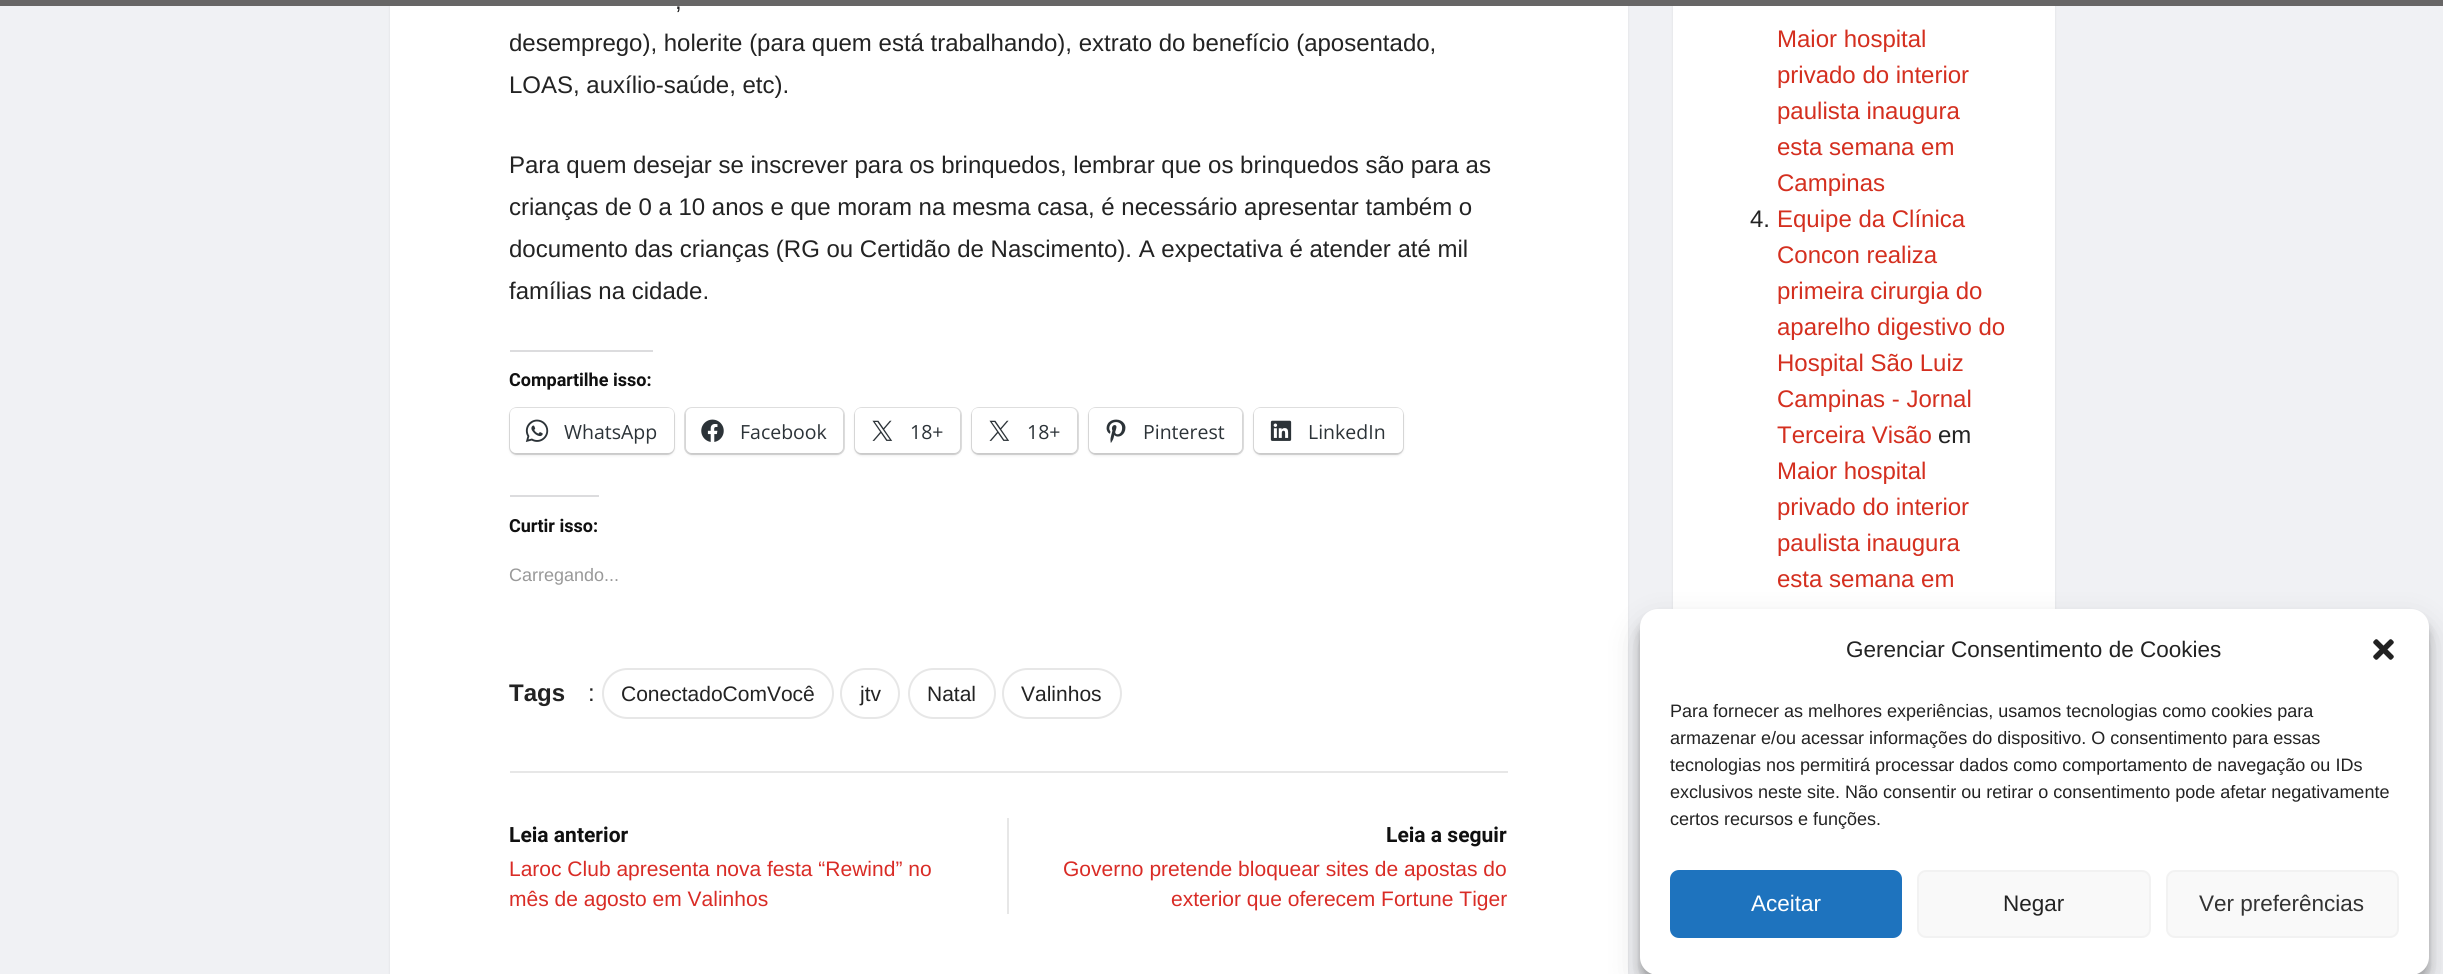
import math
import cairo

surface = cairo.ImageSurface(cairo.FORMAT_RGB24, 2443, 974)
cr = cairo.Context(surface)
options = cairo.FontOptions()
options.set_hint_metrics(cairo.HINT_METRICS_OFF)
options.set_hint_style(cairo.HINT_STYLE_NONE)
cr.set_font_options(options)
cr.set_miter_limit(4)


def rgb(code):
    cr.set_source_rgb(*(v / 255 for v in bytes.fromhex(code[-6:])))


def rrect(x, y, w, h, r):
    cr.new_sub_path()
    for i, (u, v) in enumerate([(x + w - r, y + h - r), (x + r, y + h - r), (x + r, y + r), (x + w - r, y + r)]):
        cr.arc(u, v, r, i * math.pi / 2, (i + 1) * math.pi / 2)
    cr.close_path()


def soft_shadow(x, y, w, h, r, blur, alpha):
    cr.push_group_with_content(cairo.CONTENT_ALPHA)
    cr.set_operator(cairo.OPERATOR_SOURCE)
    for i in range(15, -16, -2):
        e = blur * i / 6
        if min(w, h) + 2 * e > 0:
            cr.set_source_rgba(0, 0, 0, alpha * math.erfc((i - 1) / 8.5) / 2)
            rrect(x - e, y - e, w + 2 * e, h + 2 * e, max(0, min(r + e + blur * .6, min(w, h) / 2 + e)))
            cr.fill()
    cr.mask(cr.pop_group())


def image(path, x, y, w, h):
    cr.save()
    cr.set_source_surface(cairo.ImageSurface.create_from_png(path), x, y)
    cr.rectangle(x, y, w, h)
    cr.fill()
    cr.restore()


rgb("#f0f1f4")
cr.paint()
rgb("#000000")
soft_shadow(390, -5, 1238, 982, 0, 1.5, 0.08)
soft_shadow(1673, -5, 382, 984, 0, 1.5, 0.08)
for x, y, w, h, color in [
    (0, 0, 2443, 6, "#676666"),
    (390, 6, 1238, 968, "#ffffff"),
    (510, 350, 143, 2, "#dcdcde"),
]:
    rgb(color)
    cr.rectangle(x, y, w, h)
    cr.fill()
rrect(510, 408, 164, 46, 7)
rgb("#e0e0e0")
cr.stroke()
rgb("#000000")
soft_shadow(510, 410, 164, 45, 6, 1.5, 0.12)
rgb("#ffffff")
rrect(510, 408, 164, 45, 6)
cr.fill()
image("img/1.png", 525, 419, 24, 23)
rrect(685, 408, 159, 46, 7)
rgb("#e0e0e0")
cr.stroke()
rgb("#000000")
soft_shadow(686, 410, 157, 45, 6, 1.5, 0.12)
rgb("#ffffff")
rrect(686, 408, 157, 45, 6)
cr.fill()
image("img/2.png", 701, 419, 23, 23)
rrect(855, 408, 106, 46, 7)
rgb("#e0e0e0")
cr.stroke()
rgb("#000000")
soft_shadow(855, 410, 105, 45, 6, 1.5, 0.12)
rgb("#ffffff")
rrect(855, 408, 105, 45, 6)
cr.fill()
image("img/3.png", 872, 420, 21, 21)
rrect(972, 408, 106, 46, 7)
rgb("#e0e0e0")
cr.stroke()
rgb("#000000")
soft_shadow(972, 410, 105, 45, 6, 1.5, 0.12)
rgb("#ffffff")
rrect(972, 408, 105, 45, 6)
cr.fill()
image("img/3.png", 989, 420, 21, 21)
rrect(1089, 408, 154, 46, 7)
rgb("#e0e0e0")
cr.stroke()
rgb("#000000")
soft_shadow(1089, 410, 153, 45, 6, 1.5, 0.12)
rgb("#ffffff")
rrect(1089, 408, 153, 45, 6)
cr.fill()
image("img/4.png", 1106, 419, 20, 24)
rrect(1254, 408, 149, 46, 7)
rgb("#e0e0e0")
cr.stroke()
rgb("#000000")
soft_shadow(1254, 410, 149, 45, 6, 1.5, 0.12)
rgb("#ffffff")
rrect(1254, 408, 149, 45, 6)
cr.fill()
image("img/5.png", 1270, 420, 22, 21)
rgb("#dcdcde")
cr.rectangle(510, 495, 89, 2)
cr.fill()
rrect(603, 669, 230, 49, 24.5)
rgb("#e7e7e7")
cr.stroke()
rrect(841, 669, 58, 49, 24.5)
cr.stroke()
rrect(909, 669, 86, 49, 24.5)
cr.stroke()
rrect(1003, 669, 118, 49, 24.5)
cr.stroke()
for x, y, w, h, color in [
    (510, 771, 998, 2, "#e7e7e7"),
    (1007, 818, 2, 96, "#e7e7e7"),
    (1673, 6, 382, 603, "#ffffff"),
]:
    rgb(color)
    cr.rectangle(x, y, w, h)
    cr.fill()
rgb("#000000")
soft_shadow(1640, 618, 789, 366, 18, 4.5, 0.23)
soft_shadow(1640, 624, 789, 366, 18, 15, 0.19)
rgb("#ffffff")
rrect(1640, 609, 789, 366, 18)
cr.fill()
image("img/6.png", 2373, 639, 21, 21)
rgb("#1e73be")
rrect(1671, 871, 230, 66, 8)
cr.fill_preserve()
cr.stroke()
rgb("#f9f9f9")
rrect(1918, 871, 232, 66, 8)
cr.fill_preserve()
rgb("#f2f2f2")
cr.stroke()
rgb("#f9f9f9")
rrect(2167, 871, 231, 66, 8)
cr.fill_preserve()
rgb("#f2f2f2")
cr.stroke()
cr.select_font_face("Arimo")
cr.set_font_size(24)
rgb("#232323")
for x, y, s in [
    (675, 9, ","),
    (509, 51, "desemprego), holerite (para quem está trabalhando), extrato do benefício (aposentado,"),
    (509, 93, "LOAS, auxílio-saúde, etc)."),
    (509, 173, "Para quem desejar se inscrever para os brinquedos, lembrar que os brinquedos são para as"),
    (509, 215, "crianças de 0 a 10 anos e que moram na mesma casa, é necessário apresentar também o"),
    (509, 257, "documento das crianças (RG ou Certidão de Nascimento). A expectativa é atender até mil"),
    (509, 299, "famílias na cidade."),
]:
    cr.move_to(x, y)
    cr.show_text(s)
cr.select_font_face("Heebo", cairo.FONT_SLANT_NORMAL, cairo.FONT_WEIGHT_BOLD)
cr.set_font_size(18)
rgb("#101010")
cr.move_to(509, 386)
cr.show_text("Compartilhe isso:")
cr.select_font_face("Open Sans")
cr.set_font_size(19.5)
rgb("#2c3338")
for x, y, s in [
    (564, 439, "WhatsApp"),
    (740, 439, "Facebook"),
    (910, 439, "18+"),
    (1027, 439, "18+"),
    (1143, 439, "Pinterest"),
    (1308, 439, "LinkedIn"),
]:
    cr.move_to(x, y)
    cr.show_text(s)
cr.select_font_face("Heebo", cairo.FONT_SLANT_NORMAL, cairo.FONT_WEIGHT_BOLD)
cr.set_font_size(18)
rgb("#101010")
cr.move_to(509, 532)
cr.show_text("Curtir isso:")
cr.select_font_face("Arimo")
rgb("#999999")
cr.move_to(509, 581)
cr.show_text("Carregando...")
cr.select_font_face("Arimo", cairo.FONT_SLANT_NORMAL, cairo.FONT_WEIGHT_BOLD)
cr.set_font_size(24)
rgb("#232323")
cr.move_to(509, 701)
cr.show_text("Tags")
cr.select_font_face("Arimo")
cr.move_to(588, 701)
cr.show_text(":")
cr.set_font_size(21)
for x, y, s in [
    (621, 701, "ConectadoComVocê"),
    (860, 701, "jtv"),
    (927, 701, "Natal"),
    (1021, 701, "Valinhos"),
]:
    cr.move_to(x, y)
    cr.show_text(s)
cr.select_font_face("Heebo", cairo.FONT_SLANT_NORMAL, cairo.FONT_WEIGHT_BOLD)
rgb("#101010")
cr.move_to(509, 842)
cr.show_text("Leia anterior")
cr.select_font_face("Arimo")
rgb("#d92c26")
cr.move_to(509, 876)
cr.show_text("Laroc Club apresenta nova festa “Rewind” no")
cr.move_to(509, 906)
cr.show_text("mês de agosto em Valinhos")
cr.select_font_face("Heebo", cairo.FONT_SLANT_NORMAL, cairo.FONT_WEIGHT_BOLD)
rgb("#101010")
cr.move_to(1386, 842)
cr.show_text("Leia a seguir")
cr.select_font_face("Arimo")
rgb("#d92c26")
cr.move_to(1063, 876)
cr.show_text("Governo pretende bloquear sites de apostas do")
cr.move_to(1171, 906)
cr.show_text("exterior que oferecem Fortune Tiger")
cr.set_font_size(24)
rgb("#d42f1f")
for x, y, s in [
    (1777, 47, "Maior hospital"),
    (1777, 83, "privado do interior"),
    (1777, 119, "paulista inaugura"),
    (1777, 155, "esta semana em"),
    (1777, 191, "Campinas"),
]:
    cr.move_to(x, y)
    cr.show_text(s)
rgb("#232323")
cr.move_to(1750, 227)
cr.show_text("4.")
rgb("#d42f1f")
for x, y, s in [
    (1777, 227, "Equipe da Clínica"),
    (1777, 263, "Concon realiza"),
    (1777, 299, "primeira cirurgia do"),
    (1777, 335, "aparelho digestivo do"),
    (1777, 371, "Hospital São Luiz"),
    (1777, 407, "Campinas - Jornal"),
    (1777, 443, "Terceira Visão"),
]:
    cr.move_to(x, y)
    cr.show_text(s)
rgb("#232323")
cr.move_to(1938, 443)
cr.show_text("em")
rgb("#d42f1f")
for x, y, s in [
    (1777, 479, "Maior hospital"),
    (1777, 515, "privado do interior"),
    (1777, 551, "paulista inaugura"),
    (1777, 587, "esta semana em"),
]:
    cr.move_to(x, y)
    cr.show_text(s)
cr.set_font_size(22.5)
rgb("#232323")
cr.move_to(1846, 657)
cr.show_text("Gerenciar Consentimento de Cookies")
cr.set_font_size(18)
for x, y, s in [
    (1670, 717, "Para fornecer as melhores experiências, usamos tecnologias como cookies para"),
    (1670, 744, "armazenar e/ou acessar informações do dispositivo. O consentimento para essas"),
    (1670, 771, "tecnologias nos permitirá processar dados como comportamento de navegação ou IDs"),
    (1670, 798, "exclusivos neste site. Não consentir ou retirar o consentimento pode afetar negativamente"),
    (1670, 825, "certos recursos e funções."),
]:
    cr.move_to(x, y)
    cr.show_text(s)
cr.set_font_size(22.5)
rgb("#ffffff")
cr.move_to(1751, 911)
cr.show_text("Aceitar")
rgb("#232323")
cr.move_to(2003, 911)
cr.show_text("Negar")
rgb("#333333")
cr.move_to(2199, 911)
cr.show_text("Ver preferências")
surface.write_to_png("page.png")
